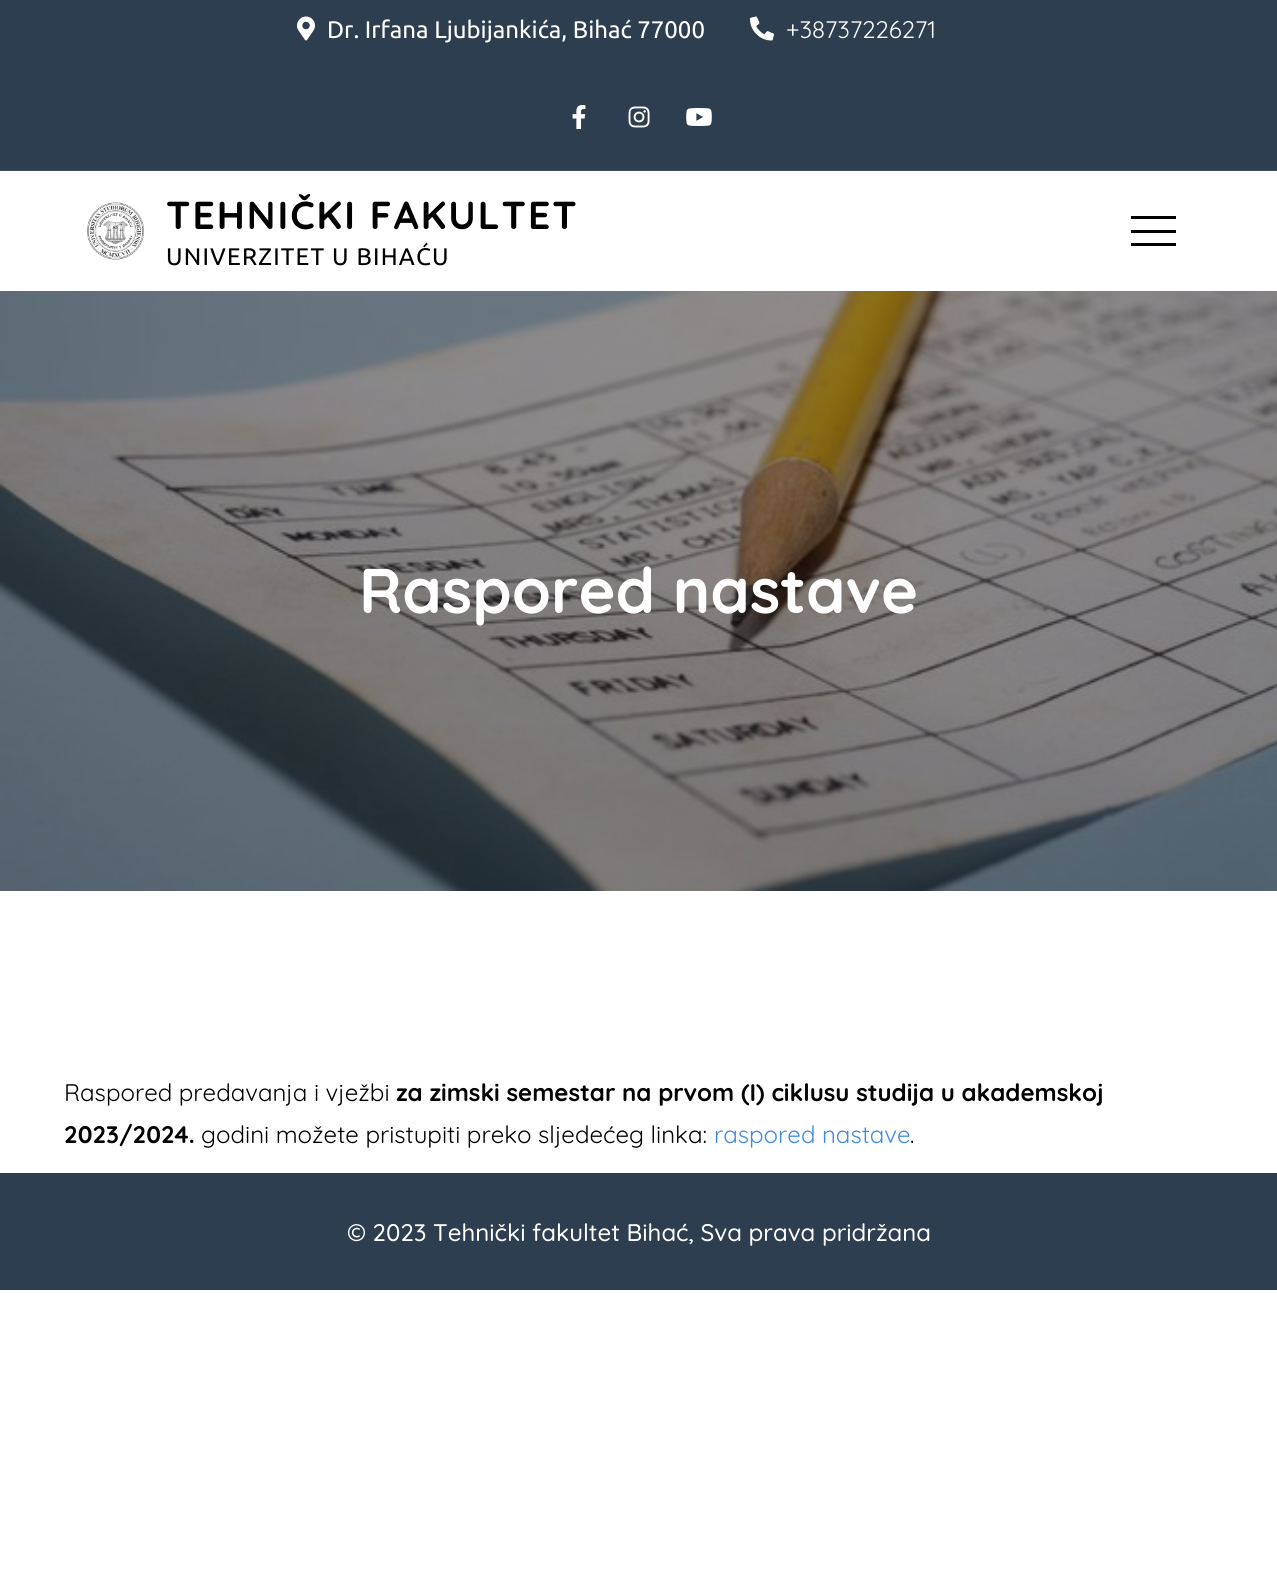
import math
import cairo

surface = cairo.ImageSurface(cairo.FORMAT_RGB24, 1277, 1579)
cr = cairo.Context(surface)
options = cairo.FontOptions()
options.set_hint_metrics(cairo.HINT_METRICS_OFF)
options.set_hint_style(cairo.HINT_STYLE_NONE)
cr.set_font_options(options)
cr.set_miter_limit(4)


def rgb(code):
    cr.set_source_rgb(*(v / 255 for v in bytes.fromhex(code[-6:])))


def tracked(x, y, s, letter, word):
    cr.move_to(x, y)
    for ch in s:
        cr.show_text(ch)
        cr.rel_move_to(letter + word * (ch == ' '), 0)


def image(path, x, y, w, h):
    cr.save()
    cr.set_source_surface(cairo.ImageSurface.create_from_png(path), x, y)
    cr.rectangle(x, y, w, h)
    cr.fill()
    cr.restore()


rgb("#ffffff")
cr.paint()
rgb("#2d3e50")
cr.rectangle(0, 0, 1277, 170)
cr.fill()
rgb("#425162")
cr.rectangle(0, 170, 1277, 1)
cr.fill()
image("img/1.png", 297, 16, 18, 25)
image("img/2.png", 750, 16, 24, 25)
image("img/3.png", 572, 105, 14, 24)
image("img/4.png", 628, 106, 22, 22)
image("img/5.png", 686, 108, 26, 18)
image("img/6.png", 87, 202, 57, 58)
for x, y, w, h, color in [
    (1131, 216, 45, 3, "#000000"),
    (1131, 230, 45, 3, "#000000"),
    (1131, 243, 45, 3, "#000000"),
]:
    rgb(color)
    cr.rectangle(x, y, w, h)
    cr.fill()
image("img/7.png", 0, 291, 1277, 600)
rgb("#2d3e50")
cr.rectangle(0, 1173, 1277, 117)
cr.fill()
cr.select_font_face("Ubuntu")
cr.set_font_size(24)
rgb("#ffffff")
cr.move_to(327, 38)
cr.show_text("Dr. Irfana Ljubijankića, Bihać 77000")
cr.select_font_face("Quicksand")
cr.move_to(786, 38)
cr.show_text("+38737226271")
cr.select_font_face("Quicksand", cairo.FONT_SLANT_NORMAL, cairo.FONT_WEIGHT_BOLD)
cr.set_font_size(39)
rgb("#000000")
tracked(166, 229, "TEHNIČKI FAKULTET", 2, 0)
cr.select_font_face("Ubuntu")
cr.set_font_size(24)
tracked(166, 265, "UNIVERZITET U BIHAĆU", 1.2, 0)
cr.select_font_face("Quicksand", cairo.FONT_SLANT_NORMAL, cairo.FONT_WEIGHT_BOLD)
cr.set_font_size(63)
rgb("#ffffff")
cr.move_to(359, 613)
cr.show_text("Raspored nastave")
cr.select_font_face("Quicksand")
cr.set_font_size(24)
rgb("#000000")
cr.move_to(64, 1101)
cr.show_text("Raspored predavanja i vježbi")
cr.select_font_face("Quicksand", cairo.FONT_SLANT_NORMAL, cairo.FONT_WEIGHT_BOLD)
cr.move_to(396, 1101)
cr.show_text("za zimski semestar na prvom (I) ciklusu studija u akademskoj")
cr.move_to(64, 1143)
cr.show_text("2023/2024.")
cr.select_font_face("Quicksand")
cr.move_to(201, 1143)
cr.show_text("godini možete pristupiti preko sljedećeg linka:")
rgb("#428bdc")
cr.move_to(714, 1143)
cr.show_text("raspored nastave")
rgb("#000000")
cr.move_to(910, 1143)
cr.show_text(".")
cr.select_font_face("Quicksand Medium")
rgb("#ffffff")
cr.move_to(347, 1241)
cr.show_text("© 2023 Tehnički fakultet Bihać, Sva prava pridržana")
surface.write_to_png("page.png")
